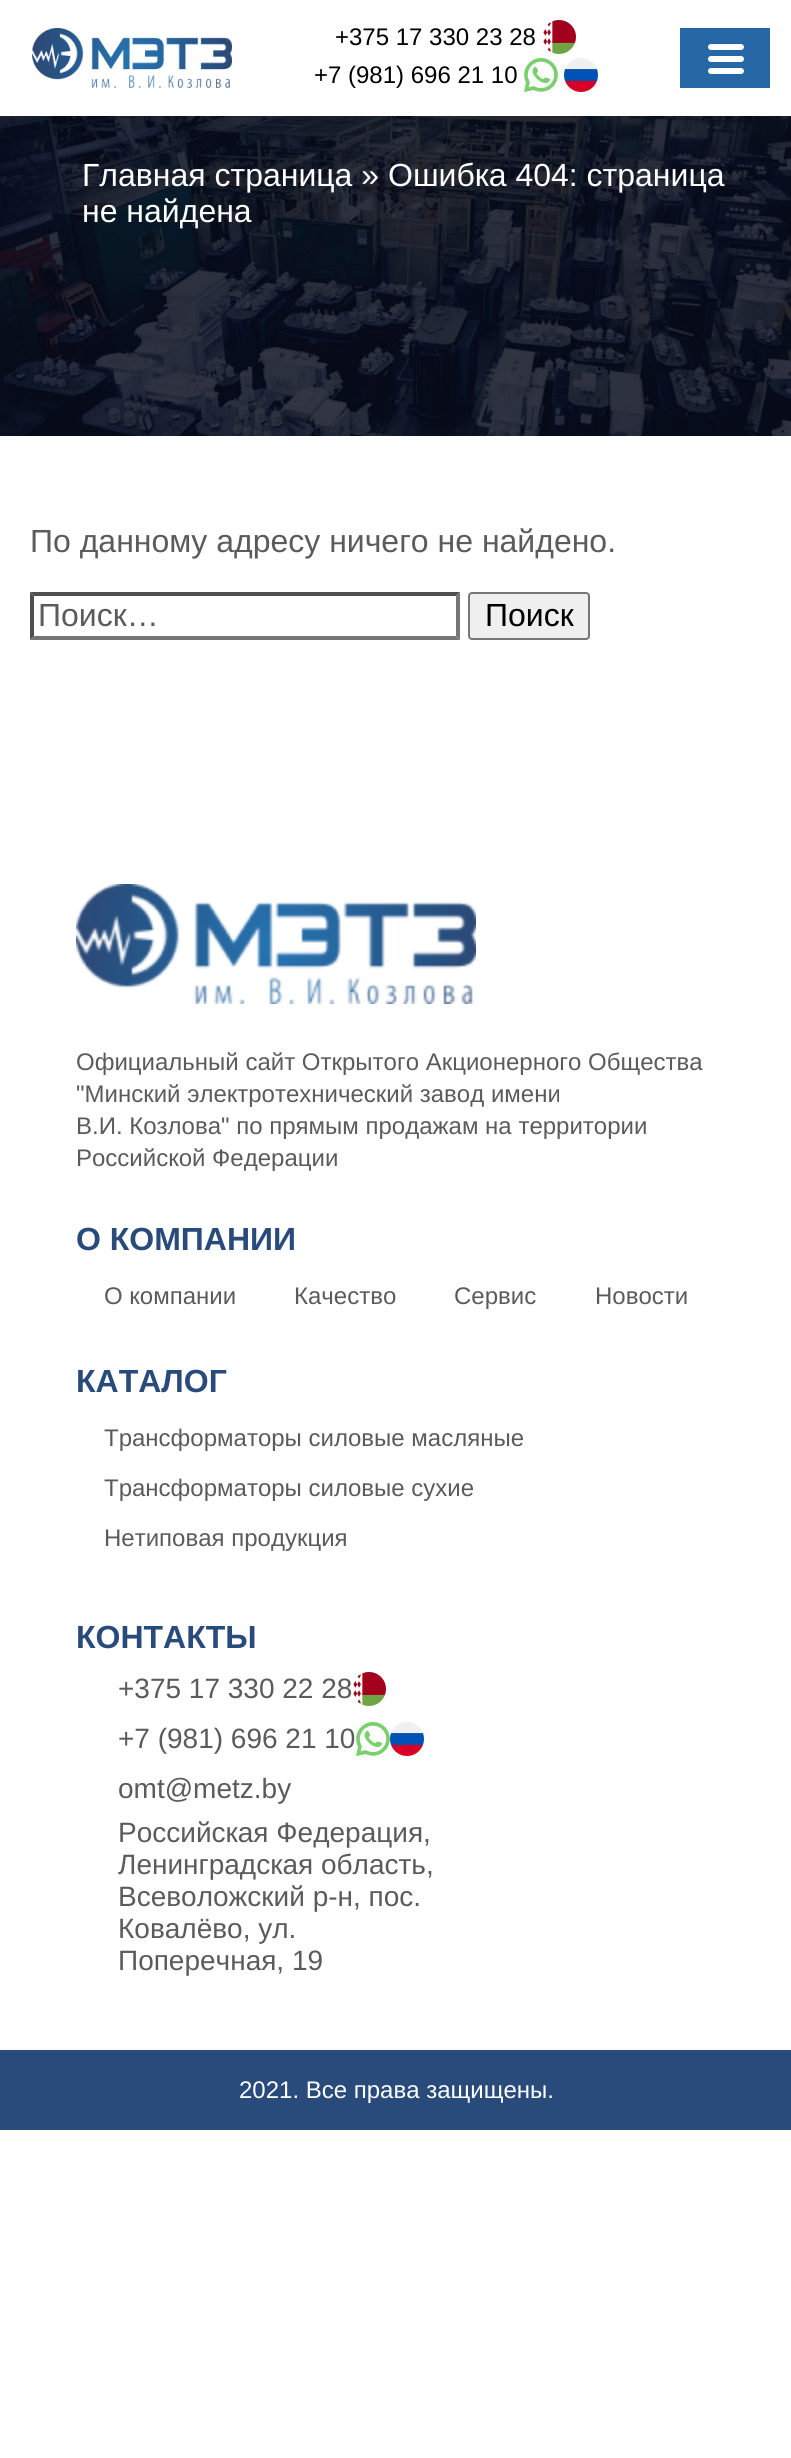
import math
import cairo

surface = cairo.ImageSurface(cairo.FORMAT_RGB24, 791, 2458)
cr = cairo.Context(surface)
options = cairo.FontOptions()
options.set_hint_metrics(cairo.HINT_METRICS_OFF)
options.set_hint_style(cairo.HINT_STYLE_NONE)
cr.set_font_options(options)
cr.set_miter_limit(4)


def rgb(code):
    cr.set_source_rgb(*(v / 255 for v in bytes.fromhex(code[-6:])))


def rrect(x, y, w, h, r):
    cr.new_sub_path()
    for i, (u, v) in enumerate([(x + w - r, y + h - r), (x + r, y + h - r), (x + r, y + r), (x + w - r, y + r)]):
        cr.arc(u, v, r, i * math.pi / 2, (i + 1) * math.pi / 2)
    cr.close_path()


def image(path, x, y, w, h):
    cr.save()
    cr.set_source_surface(cairo.ImageSurface.create_from_png(path), x, y)
    cr.rectangle(x, y, w, h)
    cr.fill()
    cr.restore()


rgb("#ffffff")
cr.paint()
image("img/1.png", 32, 28, 200, 60)
image("img/2.png", 543, 20, 33, 34)
image("img/3.png", 524, 58, 34, 34)
image("img/4.png", 564, 58, 34, 34)
rgb("#2668a6")
cr.rectangle(680, 28, 90, 60)
cr.fill()
rgb("#ffffff")
rrect(708, 44, 36, 6, 3)
cr.fill()
rrect(708, 56, 36, 6, 3)
cr.fill()
rrect(708, 68, 36, 6, 3)
cr.fill()
image("img/5.png", 0, 116, 791, 320)
rgb("#4f4f4f")
cr.new_path()
cr.move_to(30, 592)
cr.line_to(460, 592)
cr.line_to(456, 596)
cr.line_to(34, 596)
cr.close_path()
cr.fill()
rgb("#767676")
cr.new_path()
cr.move_to(460, 592)
cr.line_to(460, 640)
cr.line_to(456, 636)
cr.line_to(456, 596)
cr.close_path()
cr.fill()
cr.new_path()
cr.move_to(460, 640)
cr.line_to(30, 640)
cr.line_to(34, 636)
cr.line_to(456, 636)
cr.close_path()
cr.fill()
rgb("#4f4f4f")
cr.new_path()
cr.move_to(30, 640)
cr.line_to(30, 592)
cr.line_to(34, 596)
cr.line_to(34, 636)
cr.close_path()
cr.fill()
rgb("#efefef")
rrect(469, 593, 120, 46, 3)
cr.fill_preserve()
rgb("#767676")
cr.stroke()
image("img/6.png", 76, 884, 400, 120)
image("img/2.png", 353, 1672, 33, 34)
image("img/3.png", 356, 1722, 34, 34)
image("img/4.png", 390, 1722, 34, 34)
rgb("#294b7c")
cr.rectangle(0, 2050, 791, 80)
cr.fill()
cr.select_font_face("Liberation Sans")
cr.set_font_size(24)
rgb("#000000")
cr.move_to(335, 45)
cr.show_text("+375 17 330 23 28")
cr.move_to(314, 83)
cr.show_text("+7 (981) 696 21 10")
cr.set_font_size(32)
rgb("#ffffff")
cr.move_to(82, 186)
cr.show_text("Главная страница » Ошибка 404: страница")
cr.move_to(82, 222)
cr.show_text("не найдена")
rgb("#5b5b5b")
cr.move_to(30, 552)
cr.show_text("По данному адресу ничего не найдено.")
cr.move_to(38, 626)
cr.show_text("Поиск…")
rgb("#000000")
cr.move_to(485, 626)
cr.show_text("Поиск")
cr.set_font_size(24)
rgb("#5b5b5b")
for x, y, s in [
    (76, 1070, "Официальный сайт Открытого Акционерного Общества"),
    (76, 1102, "\"Минский электротехнический завод имени"),
    (76, 1134, "В.И. Козлова\" по прямым продажам на территории"),
    (76, 1166, "Российской Федерации"),
]:
    cr.move_to(x, y)
    cr.show_text(s)
cr.select_font_face("Liberation Sans", cairo.FONT_SLANT_NORMAL, cairo.FONT_WEIGHT_BOLD)
cr.set_font_size(32)
rgb("#294b7c")
cr.move_to(76, 1250)
cr.show_text("О КОМПАНИИ")
cr.select_font_face("Liberation Sans")
cr.set_font_size(24)
rgb("#5b5b5b")
for x, y, s in [
    (104, 1304, "О компании"),
    (294, 1304, "Качество"),
    (454, 1304, "Сервис"),
    (595, 1304, "Новости"),
]:
    cr.move_to(x, y)
    cr.show_text(s)
cr.select_font_face("Liberation Sans", cairo.FONT_SLANT_NORMAL, cairo.FONT_WEIGHT_BOLD)
cr.set_font_size(32)
rgb("#294b7c")
cr.move_to(76, 1392)
cr.show_text("КАТАЛОГ")
cr.select_font_face("Liberation Sans")
cr.set_font_size(24)
rgb("#5b5b5b")
for x, y, s in [
    (104, 1446, "Трансформаторы силовые масляные"),
    (104, 1496, "Трансформаторы силовые сухие"),
    (104, 1546, "Нетиповая продукция"),
]:
    cr.move_to(x, y)
    cr.show_text(s)
cr.select_font_face("Liberation Sans", cairo.FONT_SLANT_NORMAL, cairo.FONT_WEIGHT_BOLD)
cr.set_font_size(32)
rgb("#294b7c")
cr.move_to(76, 1648)
cr.show_text("КОНТАКТЫ")
cr.select_font_face("Liberation Sans")
cr.set_font_size(28)
rgb("#5b5b5b")
for x, y, s in [
    (118, 1698, "+375 17 330 22 28"),
    (118, 1748, "+7 (981) 696 21 10"),
    (118, 1798, "omt@metz.by"),
    (118, 1842, "Российская Федерация,"),
    (118, 1874, "Ленинградская область,"),
    (118, 1906, "Всеволожский р-н, пос."),
    (118, 1938, "Ковалёво, ул."),
    (118, 1970, "Поперечная, 19"),
]:
    cr.move_to(x, y)
    cr.show_text(s)
cr.set_font_size(24)
rgb("#ffffff")
cr.move_to(239, 2098)
cr.show_text("2021. Все права защищены.")
surface.write_to_png("page.png")
